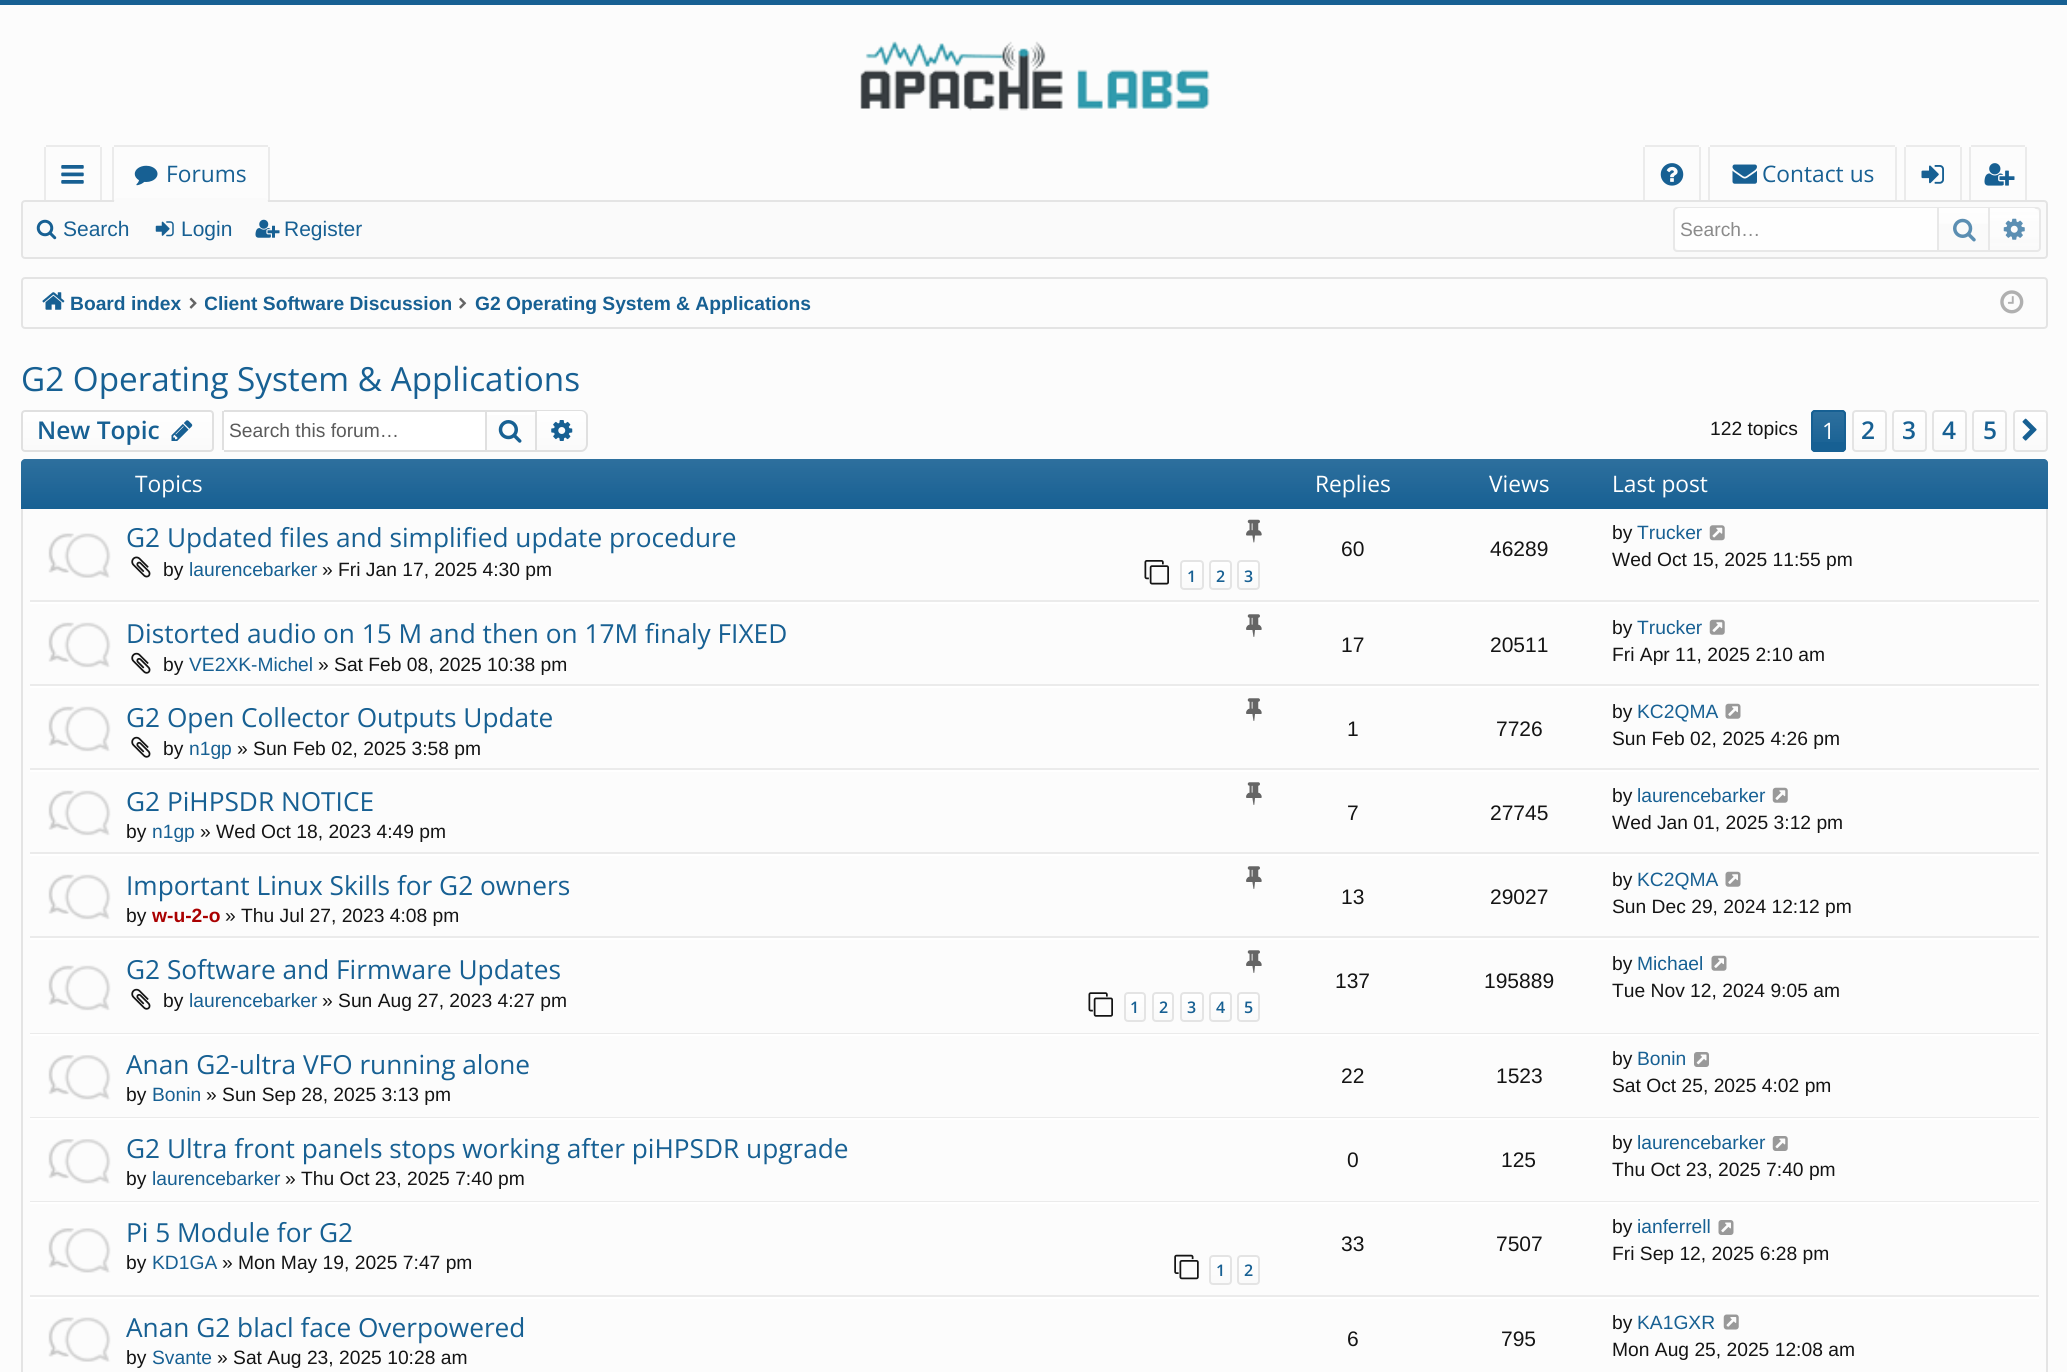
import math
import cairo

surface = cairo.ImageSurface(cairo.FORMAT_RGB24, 2067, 1372)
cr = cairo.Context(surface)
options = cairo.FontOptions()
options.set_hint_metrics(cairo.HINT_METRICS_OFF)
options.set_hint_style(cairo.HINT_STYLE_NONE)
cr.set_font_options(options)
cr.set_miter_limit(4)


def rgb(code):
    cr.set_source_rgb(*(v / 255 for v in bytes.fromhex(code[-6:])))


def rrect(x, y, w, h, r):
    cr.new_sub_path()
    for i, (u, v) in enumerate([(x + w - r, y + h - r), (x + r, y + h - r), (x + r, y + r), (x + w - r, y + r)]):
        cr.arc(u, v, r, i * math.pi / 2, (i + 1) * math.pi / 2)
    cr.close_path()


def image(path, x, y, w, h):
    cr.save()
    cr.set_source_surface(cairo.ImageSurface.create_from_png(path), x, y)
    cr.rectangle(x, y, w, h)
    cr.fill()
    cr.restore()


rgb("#fcfcfc")
cr.paint()
rgb("#176093")
cr.rectangle(0, 0, 2067, 5)
cr.fill()
image("img/1.png", 860, 41, 350, 70)
for x, y, w, h, color in [
    (46, 145, 54, 2, "#ebebeb"),
    (100, 147, 2, 54, "#ebebeb"),
    (44, 147, 2, 54, "#ebebeb"),
]:
    rgb(color)
    cr.rectangle(x, y, w, h)
    cr.fill()
image("img/2.png", 61, 165, 23, 19)
for x, y, w, h, color in [
    (114, 145, 154, 2, "#ebebeb"),
    (268, 147, 2, 54, "#ebebeb"),
    (112, 147, 2, 54, "#ebebeb"),
]:
    rgb(color)
    cr.rectangle(x, y, w, h)
    cr.fill()
image("img/3.png", 134, 165, 24, 21)
for x, y, w, h, color in [
    (1699, 147, 2, 54, "#ebebeb"),
    (1643, 147, 2, 54, "#ebebeb"),
    (1895, 147, 2, 54, "#ebebeb"),
    (1708, 147, 2, 54, "#ebebeb"),
    (1960, 147, 2, 54, "#ebebeb"),
    (1904, 147, 2, 54, "#ebebeb"),
    (2025, 147, 2, 54, "#ebebeb"),
    (1969, 147, 2, 54, "#ebebeb"),
]:
    rgb(color)
    cr.rectangle(x, y, w, h)
    cr.fill()
rgb("#fafafa")
rrect(22, 201, 2025, 57, 3)
cr.fill_preserve()
rgb("#e4e4e4")
cr.stroke()
rgb("#fafafa")
cr.new_path()
cr.move_to(117.5, 198)
cr.line_to(264.5, 198)
cr.curve_to(266.5, 198, 268, 199.5, 268, 201.5)
cr.line_to(268, 205)
cr.line_to(114, 205)
cr.line_to(114, 201.5)
cr.curve_to(114, 199.5, 115.5, 198, 117.5, 198)
cr.close_path()
cr.fill()
rgb("#ebebeb")
cr.rectangle(1645, 145, 54, 2)
cr.fill()
image("img/4.png", 1660, 163, 24, 23)
cr.rectangle(1710, 145, 185, 2)
cr.fill()
image("img/5.png", 1732, 164, 25, 20)
cr.rectangle(1906, 145, 54, 2)
cr.fill()
image("img/6.png", 1921, 165, 23, 19)
cr.rectangle(1971, 145, 54, 2)
cr.fill()
image("img/7.png", 1984, 163, 31, 23)
image("img/8.png", 36, 219, 21, 21)
image("img/9.png", 155, 221, 19, 16)
image("img/10.png", 255, 219, 25, 19)
rrect(1674, 208, 366, 43, 3)
rgb("#e8e8e8")
cr.stroke()
rgb("#fefefe")
cr.new_path()
cr.move_to(1679, 208)
cr.line_to(1937, 208)
cr.line_to(1937, 250)
cr.line_to(1679, 250)
cr.curve_to(1677, 250, 1675, 248, 1675, 246)
cr.line_to(1675, 212)
cr.curve_to(1675, 210, 1677, 208, 1679, 208)
cr.close_path()
cr.fill()
gradient = cairo.LinearGradient(1964, 208, 1964, 250)
gradient.add_color_stop_rgba(0, 0.996, 0.996, 0.996, 1)
gradient.add_color_stop_rgba(1, 0.98, 0.98, 0.98, 1)
cr.set_source(gradient)
cr.rectangle(1939, 208, 49, 16)
cr.fill()
rgb("#e8e8e8")
cr.rectangle(1988, 208, 2, 42)
cr.fill()
cr.rectangle(1937, 208, 2, 42)
cr.fill()
image("img/11.png", 1953, 218, 23, 24)
rgb("#fafafa")
cr.new_path()
cr.move_to(1990, 208)
cr.line_to(2032, 208)
cr.curve_to(2036, 208, 2039, 211, 2039, 215)
cr.line_to(2039, 243)
cr.curve_to(2039, 247, 2036, 250, 2032, 250)
cr.line_to(1990, 250)
cr.close_path()
cr.fill()
gradient = cairo.LinearGradient(2014, 208, 2014, 250)
gradient.add_color_stop_rgba(0, 0.996, 0.996, 0.996, 1)
gradient.add_color_stop_rgba(1, 0.996, 0.996, 0.996, 0)
cr.set_source(gradient)
cr.new_path()
cr.move_to(1990, 208)
cr.line_to(2032, 208)
cr.curve_to(2036, 208, 2039, 211, 2039, 215)
cr.line_to(2039, 243)
cr.curve_to(2039, 247, 2036, 250, 2032, 250)
cr.line_to(1990, 250)
cr.close_path()
cr.fill()
image("img/12.png", 2003, 218, 22, 22)
rrect(22, 278, 2025, 50, 3)
rgb("#e4e4e4")
cr.stroke()
image("img/13.png", 42, 292, 23, 18)
image("img/14.png", 189, 297, 8, 12)
image("img/15.png", 459, 297, 8, 12)
image("img/16.png", 2000, 290, 24, 24)
cr.save()
rrect(21, 410, 193, 42, 4)
cr.clip()
gradient = cairo.LinearGradient(117, 411, 117, 450)
gradient.add_color_stop_rgba(0, 1, 1, 1, 1)
gradient.add_color_stop_rgba(1, 0.98, 0.98, 0.98, 1)
cr.set_source(gradient)
cr.rectangle(21, 411, 193, 39)
cr.fill()
cr.restore()
rrect(22, 411, 191, 40, 3)
rgb("#e0e0e0")
cr.stroke()
image("img/17.png", 171, 420, 22, 21)
rgb("#ffffff")
cr.new_path()
cr.move_to(226, 411)
cr.line_to(485, 411)
cr.line_to(485, 450)
cr.line_to(226, 450)
cr.curve_to(225, 450, 224, 449, 224, 448)
cr.line_to(224, 413)
cr.curve_to(224, 412, 225, 411, 226, 411)
cr.close_path()
cr.fill()
for x, y, w, h, color in [
    (224, 410, 261, 2, "#e0e0e0"),
    (224, 450, 261, 2, "#e0e0e0"),
    (222, 411, 2, 39, "#e0e0e0"),
]:
    rgb(color)
    cr.rectangle(x, y, w, h)
    cr.fill()
gradient = cairo.LinearGradient(511, 411, 511, 450)
gradient.add_color_stop_rgba(0, 1, 1, 1, 1)
gradient.add_color_stop_rgba(1, 0.98, 0.98, 0.98, 1)
cr.set_source(gradient)
cr.rectangle(487, 412, 48, 3)
cr.fill()
cr.rectangle(486, 411, 50, 40)
rgb("#e0e0e0")
cr.stroke()
image("img/18.png", 498, 420, 24, 23)
gradient = cairo.LinearGradient(562, 411, 562, 450)
gradient.add_color_stop_rgba(0, 1, 1, 1, 1)
gradient.add_color_stop_rgba(1, 0.98, 0.98, 0.98, 1)
cr.set_source(gradient)
cr.new_path()
cr.move_to(537, 411)
cr.line_to(581, 411)
cr.curve_to(584, 411, 586, 413, 586, 416)
cr.line_to(586, 445)
cr.curve_to(586, 448, 584, 450, 581, 450)
cr.line_to(537, 450)
cr.close_path()
cr.fill()
rgb("#e0e0e0")
cr.set_fill_rule(cairo.FILL_RULE_EVEN_ODD)
cr.new_path()
cr.move_to(537, 410)
cr.line_to(581, 410)
cr.curve_to(585, 410, 588, 413, 588, 416)
cr.line_to(588, 444)
cr.curve_to(588, 448, 585, 452, 581, 452)
cr.line_to(537, 452)
cr.close_path()
cr.move_to(537, 411)
cr.line_to(581, 411)
cr.curve_to(584, 411, 586, 414, 586, 416)
cr.line_to(586, 444)
cr.curve_to(586, 447, 584, 450, 581, 450)
cr.line_to(537, 450)
cr.close_path()
cr.fill()
image("img/19.png", 551, 420, 22, 21)
rgb("#176093")
rrect(1811, 410, 35, 42, 4)
cr.fill()
gradient = cairo.LinearGradient(1829, 411, 1829, 450)
gradient.add_color_stop_rgba(0, 1, 1, 1, 0.1)
gradient.add_color_stop_rgba(1, 1, 1, 1, 0)
cr.set_source(gradient)
cr.rectangle(1811, 411, 35, 31)
cr.fill()
rrect(1812, 411, 33, 40, 3)
rgb("#176093")
cr.stroke()
cr.save()
cr.set_fill_rule(cairo.FILL_RULE_WINDING)
rrect(1852, 410, 35, 42, 4)
cr.clip()
gradient = cairo.LinearGradient(1869, 411, 1869, 450)
gradient.add_color_stop_rgba(0, 1, 1, 1, 1)
gradient.add_color_stop_rgba(1, 0.98, 0.98, 0.98, 1)
cr.set_source(gradient)
cr.rectangle(1852, 411, 35, 39)
cr.fill()
cr.restore()
rrect(1853, 411, 33, 40, 3)
rgb("#e4e4e4")
cr.stroke()
cr.save()
cr.set_fill_rule(cairo.FILL_RULE_WINDING)
rrect(1892, 410, 35, 42, 4)
cr.clip()
gradient = cairo.LinearGradient(1909, 411, 1909, 450)
gradient.add_color_stop_rgba(0, 1, 1, 1, 1)
gradient.add_color_stop_rgba(1, 0.98, 0.98, 0.98, 1)
cr.set_source(gradient)
cr.rectangle(1892, 411, 35, 39)
cr.fill()
cr.restore()
rrect(1893, 411, 33, 40, 3)
cr.stroke()
cr.save()
cr.set_fill_rule(cairo.FILL_RULE_WINDING)
rrect(1932, 410, 35, 42, 4)
cr.clip()
gradient = cairo.LinearGradient(1950, 411, 1950, 450)
gradient.add_color_stop_rgba(0, 1, 1, 1, 1)
gradient.add_color_stop_rgba(1, 0.98, 0.98, 0.98, 1)
cr.set_source(gradient)
cr.rectangle(1932, 411, 35, 39)
cr.fill()
cr.restore()
rrect(1933, 411, 33, 40, 3)
cr.stroke()
cr.save()
cr.set_fill_rule(cairo.FILL_RULE_WINDING)
rrect(1972, 410, 35, 42, 4)
cr.clip()
gradient = cairo.LinearGradient(1990, 411, 1990, 450)
gradient.add_color_stop_rgba(0, 1, 1, 1, 1)
gradient.add_color_stop_rgba(1, 0.98, 0.98, 0.98, 1)
cr.set_source(gradient)
cr.rectangle(1972, 411, 35, 39)
cr.fill()
cr.restore()
rrect(1973, 411, 33, 40, 3)
cr.stroke()
cr.save()
cr.set_fill_rule(cairo.FILL_RULE_WINDING)
rrect(2013, 410, 35, 42, 4)
cr.clip()
gradient = cairo.LinearGradient(2030, 411, 2030, 450)
gradient.add_color_stop_rgba(0, 1, 1, 1, 1)
gradient.add_color_stop_rgba(1, 0.98, 0.98, 0.98, 1)
cr.set_source(gradient)
cr.rectangle(2013, 411, 35, 39)
cr.fill()
cr.restore()
rrect(2014, 411, 33, 40, 3)
cr.stroke()
image("img/20.png", 2022, 418, 15, 23)
cr.new_path()
cr.move_to(25, 460)
cr.line_to(2044, 460)
cr.curve_to(2045.5, 460, 2047, 461.5, 2047, 463)
cr.line_to(2047, 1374)
cr.curve_to(2047, 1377.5, 2044.5, 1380, 2041, 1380)
cr.line_to(28, 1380)
cr.curve_to(24.5, 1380, 22, 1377.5, 22, 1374)
cr.line_to(22, 463)
cr.curve_to(22, 461.5, 23.5, 460, 25, 460)
cr.close_path()
cr.stroke()
rgb("#176093")
cr.new_path()
cr.move_to(25, 459)
cr.line_to(2044, 459)
cr.curve_to(2046, 459, 2048, 461, 2048, 463)
cr.line_to(2048, 509)
cr.line_to(21, 509)
cr.line_to(21, 463)
cr.curve_to(21, 461, 23, 459, 25, 459)
cr.close_path()
cr.fill()
gradient = cairo.LinearGradient(1034, 458, 1034, 509)
gradient.add_color_stop_rgba(0, 1, 1, 1, 0.1)
gradient.add_color_stop_rgba(1, 1, 1, 1, 0)
cr.set_source(gradient)
cr.new_path()
cr.move_to(25, 459)
cr.line_to(2044, 459)
cr.curve_to(2046, 459, 2048, 461, 2048, 463)
cr.line_to(2048, 509)
cr.line_to(21, 509)
cr.line_to(21, 463)
cr.curve_to(21, 461, 23, 459, 25, 459)
cr.close_path()
cr.fill()
rgb("#ebebeb")
cr.rectangle(30, 600, 2009, 2)
cr.fill()
image("img/21.png", 48, 533, 63, 45)
image("img/22.png", 1246, 519, 16, 24)
image("img/23.png", 131, 556, 20, 22)
image("img/24.png", 1144, 560, 25, 25)
cr.save()
cr.set_fill_rule(cairo.FILL_RULE_WINDING)
rrect(1180, 560, 24, 30, 4)
cr.clip()
gradient = cairo.LinearGradient(1192, 562, 1192, 588)
gradient.add_color_stop_rgba(0, 1, 1, 1, 1)
gradient.add_color_stop_rgba(1, 0.98, 0.98, 0.98, 1)
cr.set_source(gradient)
cr.rectangle(1180, 562, 24, 26)
cr.fill()
cr.restore()
rrect(1181, 561, 22, 28, 3)
rgb("#e4e4e4")
cr.stroke()
cr.save()
cr.set_fill_rule(cairo.FILL_RULE_WINDING)
rrect(1209, 560, 23, 30, 4)
cr.clip()
gradient = cairo.LinearGradient(1221, 562, 1221, 588)
gradient.add_color_stop_rgba(0, 1, 1, 1, 1)
gradient.add_color_stop_rgba(1, 0.98, 0.98, 0.98, 1)
cr.set_source(gradient)
cr.rectangle(1209, 562, 23, 26)
cr.fill()
cr.restore()
rrect(1210, 561, 21, 28, 3)
cr.stroke()
cr.save()
cr.set_fill_rule(cairo.FILL_RULE_WINDING)
rrect(1237, 560, 23, 30, 4)
cr.clip()
gradient = cairo.LinearGradient(1249, 562, 1249, 588)
gradient.add_color_stop_rgba(0, 1, 1, 1, 1)
gradient.add_color_stop_rgba(1, 0.98, 0.98, 0.98, 1)
cr.set_source(gradient)
cr.rectangle(1237, 562, 23, 26)
cr.fill()
cr.restore()
rrect(1238, 561, 21, 28, 3)
cr.stroke()
image("img/25.png", 1709, 525, 16, 16)
rgb("#ffffff")
cr.rectangle(30, 602, 2009, 2)
cr.fill()
rgb("#ebebeb")
cr.rectangle(30, 684, 2009, 2)
cr.fill()
image("img/26.png", 48, 622, 63, 46)
image("img/27.png", 1246, 614, 16, 23)
image("img/28.png", 131, 652, 20, 22)
image("img/29.png", 1709, 619, 16, 16)
rgb("#ffffff")
cr.rectangle(30, 686, 2009, 2)
cr.fill()
rgb("#ebebeb")
cr.rectangle(30, 768, 2009, 2)
cr.fill()
image("img/26.png", 48, 706, 63, 46)
image("img/27.png", 1246, 698, 16, 23)
image("img/28.png", 131, 736, 20, 22)
image("img/30.png", 1725, 703, 16, 16)
rgb("#ffffff")
cr.rectangle(30, 770, 2009, 2)
cr.fill()
rgb("#ebebeb")
cr.rectangle(30, 852, 2009, 2)
cr.fill()
image("img/26.png", 48, 790, 63, 46)
image("img/27.png", 1246, 782, 16, 23)
image("img/29.png", 1772, 787, 16, 16)
rgb("#ffffff")
cr.rectangle(30, 854, 2009, 2)
cr.fill()
rgb("#ebebeb")
cr.rectangle(30, 936, 2009, 2)
cr.fill()
image("img/26.png", 48, 874, 63, 46)
image("img/27.png", 1246, 866, 16, 23)
image("img/30.png", 1725, 871, 16, 16)
rgb("#ffffff")
cr.rectangle(30, 938, 2009, 2)
cr.fill()
rgb("#ebebeb")
cr.rectangle(30, 1033, 2009, 1)
cr.fill()
image("img/26.png", 48, 965, 63, 46)
image("img/27.png", 1246, 950, 16, 23)
image("img/28.png", 131, 988, 20, 22)
image("img/31.png", 1088, 992, 25, 25)
cr.save()
cr.set_fill_rule(cairo.FILL_RULE_WINDING)
rrect(1124, 992, 22, 30, 4)
cr.clip()
gradient = cairo.LinearGradient(1135, 994, 1135, 1020)
gradient.add_color_stop_rgba(0, 1, 1, 1, 1)
gradient.add_color_stop_rgba(1, 0.98, 0.98, 0.98, 1)
cr.set_source(gradient)
cr.rectangle(1124, 994, 22, 26)
cr.fill()
cr.restore()
rrect(1125, 993, 20, 28, 3)
rgb("#e4e4e4")
cr.stroke()
cr.save()
cr.set_fill_rule(cairo.FILL_RULE_WINDING)
rrect(1152, 992, 22, 30, 4)
cr.clip()
gradient = cairo.LinearGradient(1163, 994, 1163, 1020)
gradient.add_color_stop_rgba(0, 1, 1, 1, 1)
gradient.add_color_stop_rgba(1, 0.98, 0.98, 0.98, 1)
cr.set_source(gradient)
cr.rectangle(1152, 994, 22, 26)
cr.fill()
cr.restore()
rrect(1153, 993, 20, 28, 3)
cr.stroke()
cr.save()
cr.set_fill_rule(cairo.FILL_RULE_WINDING)
rrect(1180, 992, 24, 30, 4)
cr.clip()
gradient = cairo.LinearGradient(1192, 994, 1192, 1020)
gradient.add_color_stop_rgba(0, 1, 1, 1, 1)
gradient.add_color_stop_rgba(1, 0.98, 0.98, 0.98, 1)
cr.set_source(gradient)
cr.rectangle(1180, 994, 24, 26)
cr.fill()
cr.restore()
rrect(1181, 993, 22, 28, 3)
cr.stroke()
cr.save()
cr.set_fill_rule(cairo.FILL_RULE_WINDING)
rrect(1209, 992, 23, 30, 4)
cr.clip()
gradient = cairo.LinearGradient(1221, 994, 1221, 1020)
gradient.add_color_stop_rgba(0, 1, 1, 1, 1)
gradient.add_color_stop_rgba(1, 0.98, 0.98, 0.98, 1)
cr.set_source(gradient)
cr.rectangle(1209, 994, 23, 26)
cr.fill()
cr.restore()
rrect(1210, 993, 21, 28, 3)
cr.stroke()
cr.save()
cr.set_fill_rule(cairo.FILL_RULE_WINDING)
rrect(1237, 992, 23, 30, 4)
cr.clip()
gradient = cairo.LinearGradient(1249, 994, 1249, 1020)
gradient.add_color_stop_rgba(0, 1, 1, 1, 1)
gradient.add_color_stop_rgba(1, 0.98, 0.98, 0.98, 1)
cr.set_source(gradient)
cr.rectangle(1237, 994, 23, 26)
cr.fill()
cr.restore()
rrect(1238, 993, 21, 28, 3)
cr.stroke()
image("img/32.png", 1711, 955, 16, 16)
rgb("#ffffff")
cr.rectangle(30, 1034, 2009, 2)
cr.fill()
rgb("#ebebeb")
cr.rectangle(30, 1117, 2009, 1)
cr.fill()
image("img/33.png", 48, 1055, 63, 45)
image("img/34.png", 1694, 1052, 15, 15)
rgb("#ffffff")
cr.rectangle(30, 1118, 2009, 2)
cr.fill()
rgb("#ebebeb")
cr.rectangle(30, 1201, 2009, 1)
cr.fill()
image("img/33.png", 48, 1139, 63, 45)
image("img/35.png", 1772, 1136, 16, 15)
rgb("#ffffff")
cr.rectangle(30, 1202, 2009, 2)
cr.fill()
rgb("#ebebeb")
cr.rectangle(30, 1295, 2009, 2)
cr.fill()
image("img/36.png", 48, 1228, 63, 45)
image("img/37.png", 1174, 1254, 25, 26)
cr.save()
cr.set_fill_rule(cairo.FILL_RULE_WINDING)
rrect(1209, 1255, 23, 30, 4)
cr.clip()
gradient = cairo.LinearGradient(1221, 1257, 1221, 1283)
gradient.add_color_stop_rgba(0, 1, 1, 1, 1)
gradient.add_color_stop_rgba(1, 0.98, 0.98, 0.98, 1)
cr.set_source(gradient)
cr.rectangle(1209, 1257, 23, 26)
cr.fill()
cr.restore()
rrect(1210, 1256, 21, 28, 3)
rgb("#e4e4e4")
cr.stroke()
cr.save()
cr.set_fill_rule(cairo.FILL_RULE_WINDING)
rrect(1237, 1255, 23, 30, 4)
cr.clip()
gradient = cairo.LinearGradient(1249, 1257, 1249, 1283)
gradient.add_color_stop_rgba(0, 1, 1, 1, 1)
gradient.add_color_stop_rgba(1, 0.98, 0.98, 0.98, 1)
cr.set_source(gradient)
cr.rectangle(1237, 1257, 23, 26)
cr.fill()
cr.restore()
rrect(1238, 1256, 21, 28, 3)
cr.stroke()
image("img/38.png", 1718, 1220, 16, 15)
rgb("#ffffff")
cr.rectangle(30, 1297, 2009, 2)
cr.fill()
image("img/21.png", 48, 1317, 63, 45)
image("img/39.png", 1723, 1314, 16, 16)
cr.select_font_face("Open Sans")
cr.set_font_size(22.75)
rgb("#176093")
cr.move_to(166, 182)
cr.show_text("Forums")
cr.move_to(1762, 182)
cr.show_text("Contact us")
cr.select_font_face("Liberation Sans")
cr.set_font_size(21)
for x, y, s in [
    (63, 236, "Search"),
    (181, 236, "Login"),
    (284, 236, "Register"),
]:
    cr.move_to(x, y)
    cr.show_text(s)
cr.set_font_size(19.25)
rgb("#8b8b8b")
cr.move_to(1680, 236)
cr.show_text("Search…")
cr.select_font_face("Liberation Sans", cairo.FONT_SLANT_NORMAL, cairo.FONT_WEIGHT_BOLD)
rgb("#176093")
cr.move_to(70, 310)
cr.show_text("Board index")
cr.save()
cr.set_fill_rule(cairo.FILL_RULE_WINDING)
cr.rectangle(205, 284, 247, 38)
cr.clip()
cr.move_to(204, 310)
cr.show_text("Client Software Discussion")
cr.restore()
cr.move_to(475, 310)
cr.show_text("G2 Operating System & Applications")
cr.select_font_face("Open Sans")
cr.set_font_size(33.25)
cr.move_to(21, 391)
cr.show_text("G2 Operating System & Applications")
cr.select_font_face("Open Sans SemiBold")
cr.set_font_size(24.5)
cr.move_to(37, 439)
cr.show_text("New Topic")
cr.select_font_face("Liberation Sans")
cr.set_font_size(19.25)
rgb("#5b5b5b")
cr.move_to(229, 437)
cr.show_text("Search this forum…")
rgb("#141414")
cr.move_to(1710, 435)
cr.show_text("122 topics")
cr.select_font_face("Open Sans")
cr.set_font_size(22.75)
rgb("#ffffff")
cr.move_to(1822, 439)
cr.show_text("1")
cr.select_font_face("Open Sans SemiBold")
cr.set_font_size(24.5)
rgb("#176093")
for x, y, s in [
    (1861, 439, "2"),
    (1902, 439, "3"),
    (1942, 439, "4"),
    (1983, 439, "5"),
]:
    cr.move_to(x, y)
    cr.show_text(s)
cr.select_font_face("Open Sans")
cr.set_font_size(22.75)
rgb("#ffffff")
for x, y, s in [
    (135, 492, "Topics"),
    (1315, 492, "Replies"),
    (1489, 492, "Views"),
    (1612, 492, "Last post"),
]:
    cr.move_to(x, y)
    cr.show_text(s)
cr.set_font_size(26.25)
rgb("#176093")
cr.move_to(126, 547)
cr.show_text("G2 Updated files and simplified update procedure")
cr.select_font_face("Liberation Sans")
cr.set_font_size(19.25)
rgb("#141414")
cr.move_to(163, 576)
cr.show_text("by")
rgb("#176093")
cr.move_to(189, 576)
cr.show_text("laurencebarker")
rgb("#141414")
cr.move_to(322, 576)
cr.show_text("» Fri Jan 17, 2025 4:30 pm")
cr.select_font_face("Open Sans SemiBold")
cr.set_font_size(16)
rgb("#176093")
for x, y, s in [
    (1187, 582, "1"),
    (1216, 582, "2"),
    (1244, 582, "3"),
]:
    cr.move_to(x, y)
    cr.show_text(s)
cr.select_font_face("Liberation Sans")
cr.set_font_size(21)
rgb("#141414")
cr.move_to(1341, 556)
cr.show_text("60")
cr.move_to(1490, 556)
cr.show_text("46289")
cr.set_font_size(19.25)
cr.move_to(1612, 539)
cr.show_text("by")
rgb("#176093")
cr.move_to(1637, 539)
cr.show_text("Trucker")
rgb("#141414")
cr.move_to(1612, 566)
cr.show_text("Wed Oct 15, 2025 11:55 pm")
cr.select_font_face("Open Sans")
cr.set_font_size(26.25)
rgb("#176093")
cr.move_to(126, 643)
cr.show_text("Distorted audio on 15 M and then on 17M finaly FIXED")
cr.select_font_face("Liberation Sans")
cr.set_font_size(19.25)
rgb("#141414")
cr.move_to(163, 671)
cr.show_text("by")
rgb("#176093")
cr.move_to(189, 671)
cr.show_text("VE2XK-Michel")
rgb("#141414")
cr.move_to(318, 671)
cr.show_text("» Sat Feb 08, 2025 10:38 pm")
cr.set_font_size(21)
cr.move_to(1341, 652)
cr.show_text("17")
cr.move_to(1490, 652)
cr.show_text("20511")
cr.set_font_size(19.25)
cr.move_to(1612, 634)
cr.show_text("by")
rgb("#176093")
cr.move_to(1637, 634)
cr.show_text("Trucker")
rgb("#141414")
cr.move_to(1612, 661)
cr.show_text("Fri Apr 11, 2025 2:10 am")
cr.select_font_face("Open Sans")
cr.set_font_size(26.25)
rgb("#176093")
cr.move_to(126, 727)
cr.show_text("G2 Open Collector Outputs Update")
cr.select_font_face("Liberation Sans")
cr.set_font_size(19.25)
rgb("#141414")
cr.move_to(163, 755)
cr.show_text("by")
rgb("#176093")
cr.move_to(189, 755)
cr.show_text("n1gp")
rgb("#141414")
cr.move_to(237, 755)
cr.show_text("» Sun Feb 02, 2025 3:58 pm")
cr.set_font_size(21)
cr.move_to(1347, 736)
cr.show_text("1")
cr.move_to(1496, 736)
cr.show_text("7726")
cr.set_font_size(19.25)
cr.move_to(1612, 718)
cr.show_text("by")
rgb("#176093")
cr.move_to(1637, 718)
cr.show_text("KC2QMA")
rgb("#141414")
cr.move_to(1612, 745)
cr.show_text("Sun Feb 02, 2025 4:26 pm")
cr.select_font_face("Open Sans")
cr.set_font_size(26.25)
rgb("#176093")
cr.move_to(126, 811)
cr.show_text("G2 PiHPSDR NOTICE")
cr.select_font_face("Liberation Sans")
cr.set_font_size(19.25)
rgb("#141414")
cr.move_to(126, 838)
cr.show_text("by")
rgb("#176093")
cr.move_to(152, 838)
cr.show_text("n1gp")
rgb("#141414")
cr.move_to(200, 838)
cr.show_text("» Wed Oct 18, 2023 4:49 pm")
cr.set_font_size(21)
cr.move_to(1347, 820)
cr.show_text("7")
cr.move_to(1490, 820)
cr.show_text("27745")
cr.set_font_size(19.25)
cr.move_to(1612, 802)
cr.show_text("by")
rgb("#176093")
cr.move_to(1637, 802)
cr.show_text("laurencebarker")
rgb("#141414")
cr.move_to(1612, 829)
cr.show_text("Wed Jan 01, 2025 3:12 pm")
cr.select_font_face("Open Sans")
cr.set_font_size(26.25)
rgb("#176093")
cr.move_to(126, 895)
cr.show_text("Important Linux Skills for G2 owners")
cr.select_font_face("Liberation Sans")
cr.set_font_size(19.25)
rgb("#141414")
cr.move_to(126, 922)
cr.show_text("by")
cr.select_font_face("Liberation Sans", cairo.FONT_SLANT_NORMAL, cairo.FONT_WEIGHT_BOLD)
rgb("#aa0000")
cr.move_to(152, 922)
cr.show_text("w-u-2-o")
cr.select_font_face("Liberation Sans")
rgb("#141414")
cr.move_to(225, 922)
cr.show_text("» Thu Jul 27, 2023 4:08 pm")
cr.set_font_size(21)
cr.move_to(1341, 904)
cr.show_text("13")
cr.move_to(1490, 904)
cr.show_text("29027")
cr.set_font_size(19.25)
cr.move_to(1612, 886)
cr.show_text("by")
rgb("#176093")
cr.move_to(1637, 886)
cr.show_text("KC2QMA")
rgb("#141414")
cr.move_to(1612, 913)
cr.show_text("Sun Dec 29, 2024 12:12 pm")
cr.select_font_face("Open Sans")
cr.set_font_size(26.25)
rgb("#176093")
cr.move_to(126, 979)
cr.show_text("G2 Software and Firmware Updates")
cr.select_font_face("Liberation Sans")
cr.set_font_size(19.25)
rgb("#141414")
cr.move_to(163, 1007)
cr.show_text("by")
rgb("#176093")
cr.move_to(189, 1007)
cr.show_text("laurencebarker")
rgb("#141414")
cr.move_to(322, 1007)
cr.show_text("» Sun Aug 27, 2023 4:27 pm")
cr.select_font_face("Open Sans SemiBold")
cr.set_font_size(16)
rgb("#176093")
for x, y, s in [
    (1130, 1013, "1"),
    (1159, 1013, "2"),
    (1187, 1013, "3"),
    (1216, 1013, "4"),
    (1244, 1013, "5"),
]:
    cr.move_to(x, y)
    cr.show_text(s)
cr.select_font_face("Liberation Sans")
cr.set_font_size(21)
rgb("#141414")
cr.move_to(1335, 988)
cr.show_text("137")
cr.move_to(1484, 988)
cr.show_text("195889")
cr.set_font_size(19.25)
cr.move_to(1612, 970)
cr.show_text("by")
rgb("#176093")
cr.move_to(1637, 970)
cr.show_text("Michael")
rgb("#141414")
cr.move_to(1612, 997)
cr.show_text("Tue Nov 12, 2024 9:05 am")
cr.select_font_face("Open Sans")
cr.set_font_size(26.25)
rgb("#176093")
cr.move_to(126, 1074)
cr.show_text("Anan G2-ultra VFO running alone")
cr.select_font_face("Liberation Sans")
cr.set_font_size(19.25)
rgb("#141414")
cr.move_to(126, 1101)
cr.show_text("by")
rgb("#176093")
cr.move_to(152, 1101)
cr.show_text("Bonin")
rgb("#141414")
cr.move_to(206, 1101)
cr.show_text("» Sun Sep 28, 2025 3:13 pm")
cr.set_font_size(21)
cr.move_to(1341, 1083)
cr.show_text("22")
cr.move_to(1496, 1083)
cr.show_text("1523")
cr.set_font_size(19.25)
cr.move_to(1612, 1065)
cr.show_text("by")
rgb("#176093")
cr.move_to(1637, 1065)
cr.show_text("Bonin")
rgb("#141414")
cr.move_to(1612, 1092)
cr.show_text("Sat Oct 25, 2025 4:02 pm")
cr.select_font_face("Open Sans")
cr.set_font_size(26.25)
rgb("#176093")
cr.move_to(126, 1158)
cr.show_text("G2 Ultra front panels stops working after piHPSDR upgrade")
cr.select_font_face("Liberation Sans")
cr.set_font_size(19.25)
rgb("#141414")
cr.move_to(126, 1185)
cr.show_text("by")
rgb("#176093")
cr.move_to(152, 1185)
cr.show_text("laurencebarker")
rgb("#141414")
cr.move_to(285, 1185)
cr.show_text("» Thu Oct 23, 2025 7:40 pm")
cr.set_font_size(21)
cr.move_to(1347, 1167)
cr.show_text("0")
cr.move_to(1501, 1167)
cr.show_text("125")
cr.set_font_size(19.25)
cr.move_to(1612, 1149)
cr.show_text("by")
rgb("#176093")
cr.move_to(1637, 1149)
cr.show_text("laurencebarker")
rgb("#141414")
cr.move_to(1612, 1176)
cr.show_text("Thu Oct 23, 2025 7:40 pm")
cr.select_font_face("Open Sans")
cr.set_font_size(26.25)
rgb("#176093")
cr.move_to(126, 1242)
cr.show_text("Pi 5 Module for G2")
cr.select_font_face("Liberation Sans")
cr.set_font_size(19.25)
rgb("#141414")
cr.move_to(126, 1269)
cr.show_text("by")
rgb("#176093")
cr.move_to(152, 1269)
cr.show_text("KD1GA")
rgb("#141414")
cr.move_to(222, 1269)
cr.show_text("» Mon May 19, 2025 7:47 pm")
cr.select_font_face("Open Sans SemiBold")
cr.set_font_size(16)
rgb("#176093")
cr.move_to(1216, 1276)
cr.show_text("1")
cr.move_to(1244, 1276)
cr.show_text("2")
cr.select_font_face("Liberation Sans")
cr.set_font_size(21)
rgb("#141414")
cr.move_to(1341, 1251)
cr.show_text("33")
cr.move_to(1496, 1251)
cr.show_text("7507")
cr.set_font_size(19.25)
cr.move_to(1612, 1233)
cr.show_text("by")
rgb("#176093")
cr.move_to(1637, 1233)
cr.show_text("ianferrell")
rgb("#141414")
cr.move_to(1612, 1260)
cr.show_text("Fri Sep 12, 2025 6:28 pm")
cr.select_font_face("Open Sans")
cr.set_font_size(26.25)
rgb("#176093")
cr.move_to(126, 1337)
cr.show_text("Anan G2 blacl face Overpowered")
cr.select_font_face("Liberation Sans")
cr.set_font_size(19.25)
rgb("#141414")
cr.move_to(126, 1364)
cr.show_text("by")
rgb("#176093")
cr.move_to(152, 1364)
cr.show_text("Svante")
rgb("#141414")
cr.move_to(217, 1364)
cr.show_text("» Sat Aug 23, 2025 10:28 am")
cr.set_font_size(21)
cr.move_to(1347, 1346)
cr.show_text("6")
cr.move_to(1501, 1346)
cr.show_text("795")
cr.set_font_size(19.25)
cr.move_to(1612, 1329)
cr.show_text("by")
rgb("#176093")
cr.move_to(1637, 1329)
cr.show_text("KA1GXR")
rgb("#141414")
cr.move_to(1612, 1356)
cr.show_text("Mon Aug 25, 2025 12:08 am")
surface.write_to_png("page.png")
